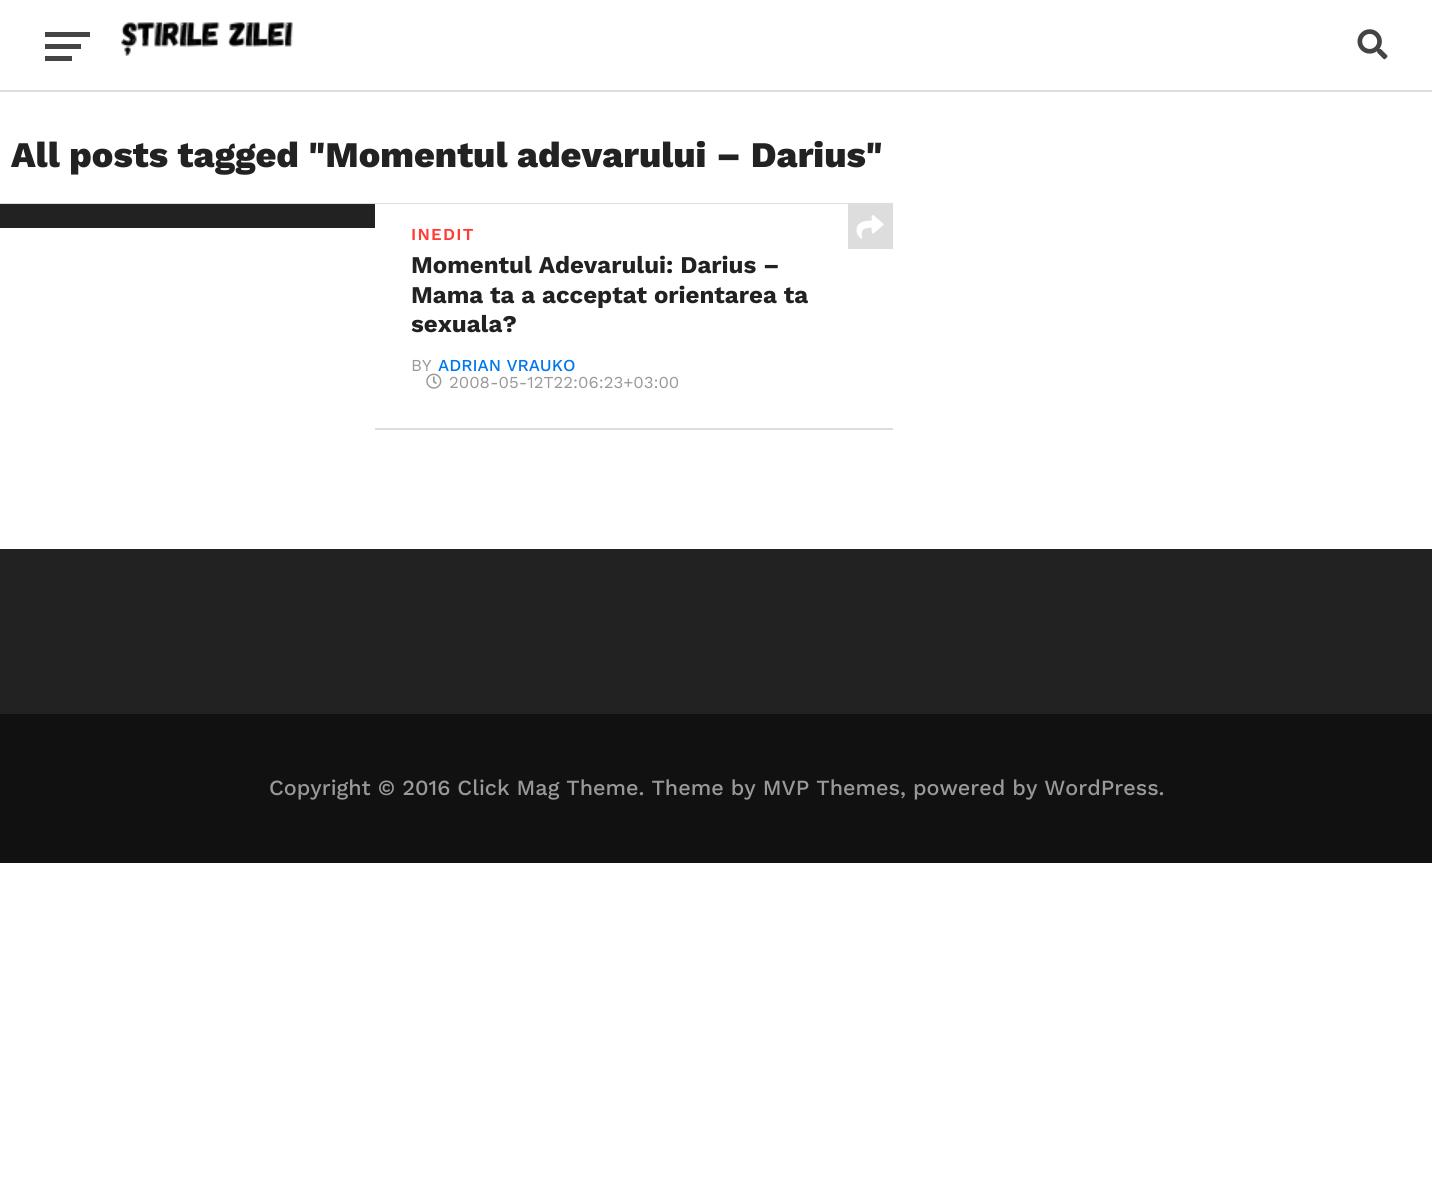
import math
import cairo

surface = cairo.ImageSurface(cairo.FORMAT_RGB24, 1432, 1188)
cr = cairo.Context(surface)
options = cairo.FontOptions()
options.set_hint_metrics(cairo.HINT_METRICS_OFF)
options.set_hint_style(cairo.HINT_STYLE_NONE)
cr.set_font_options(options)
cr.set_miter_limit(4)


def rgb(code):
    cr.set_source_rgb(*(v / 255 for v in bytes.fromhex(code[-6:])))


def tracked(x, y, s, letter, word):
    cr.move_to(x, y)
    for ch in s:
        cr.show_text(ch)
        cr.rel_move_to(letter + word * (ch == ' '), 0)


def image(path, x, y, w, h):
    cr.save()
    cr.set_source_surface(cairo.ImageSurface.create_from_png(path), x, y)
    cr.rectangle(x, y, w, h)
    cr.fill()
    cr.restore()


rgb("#ffffff")
cr.paint()
for x, y, w, h, color in [
    (45, 32, 45, 5, "#444444"),
    (45, 44, 36, 5, "#444444"),
    (45, 56, 27, 5, "#444444"),
]:
    rgb(color)
    cr.rectangle(x, y, w, h)
    cr.fill()
image("img/1.png", 121, 22, 172, 34)
image("img/2.png", 1357, 29, 31, 31)
for x, y, w, h, color in [
    (0, 90, 1432, 2, "#dddddd"),
    (0, 203, 893, 1, "#dddddd"),
    (0, 204, 375, 24, "#222222"),
    (375, 428, 518, 2, "#dddddd"),
    (848, 204, 45, 45, "#dddddd"),
]:
    rgb(color)
    cr.rectangle(x, y, w, h)
    cr.fill()
image("img/3.png", 856, 215, 28, 24)
image("img/4.png", 426, 373, 16, 16)
rgb("#222222")
cr.rectangle(0, 549, 1432, 165)
cr.fill()
rgb("#111111")
cr.rectangle(0, 714, 1432, 149)
cr.fill()
cr.select_font_face("Work Sans ExtraBold")
cr.set_font_size(36)
rgb("#222222")
cr.move_to(11, 167)
cr.show_text("All posts tagged \"Momentul adevarului – Darius\"")
cr.select_font_face("Work Sans SemiBold")
cr.set_font_size(16.75)
rgb("#ff3c36")
tracked(411, 240, "INEDIT", 1.25, 0)
cr.select_font_face("Work Sans", cairo.FONT_SLANT_NORMAL, cairo.FONT_WEIGHT_BOLD)
cr.set_font_size(24)
rgb("#222222")
for x, y, s in [
    (411, 273, "Momentul Adevarului: Darius –"),
    (411, 303, "Mama ta a acceptat orientarea ta"),
    (411, 332, "sexuala?"),
]:
    cr.move_to(x, y)
    cr.show_text(s)
cr.select_font_face("Work Sans")
cr.set_font_size(16.75)
rgb("#999999")
cr.move_to(411, 371)
cr.show_text("BY")
cr.select_font_face("Work Sans Medium")
rgb("#0077ee")
cr.move_to(438, 371)
cr.show_text("ADRIAN VRAUKO")
cr.select_font_face("Work Sans")
rgb("#999999")
cr.move_to(449, 388)
cr.show_text("2008-05-12T22:06:23+03:00")
cr.select_font_face("Work Sans Medium")
cr.set_font_size(21.6)
cr.move_to(269, 795)
cr.show_text("Copyright © 2016 Click Mag Theme. Theme by MVP Themes, powered by WordPress.")
surface.write_to_png("page.png")
